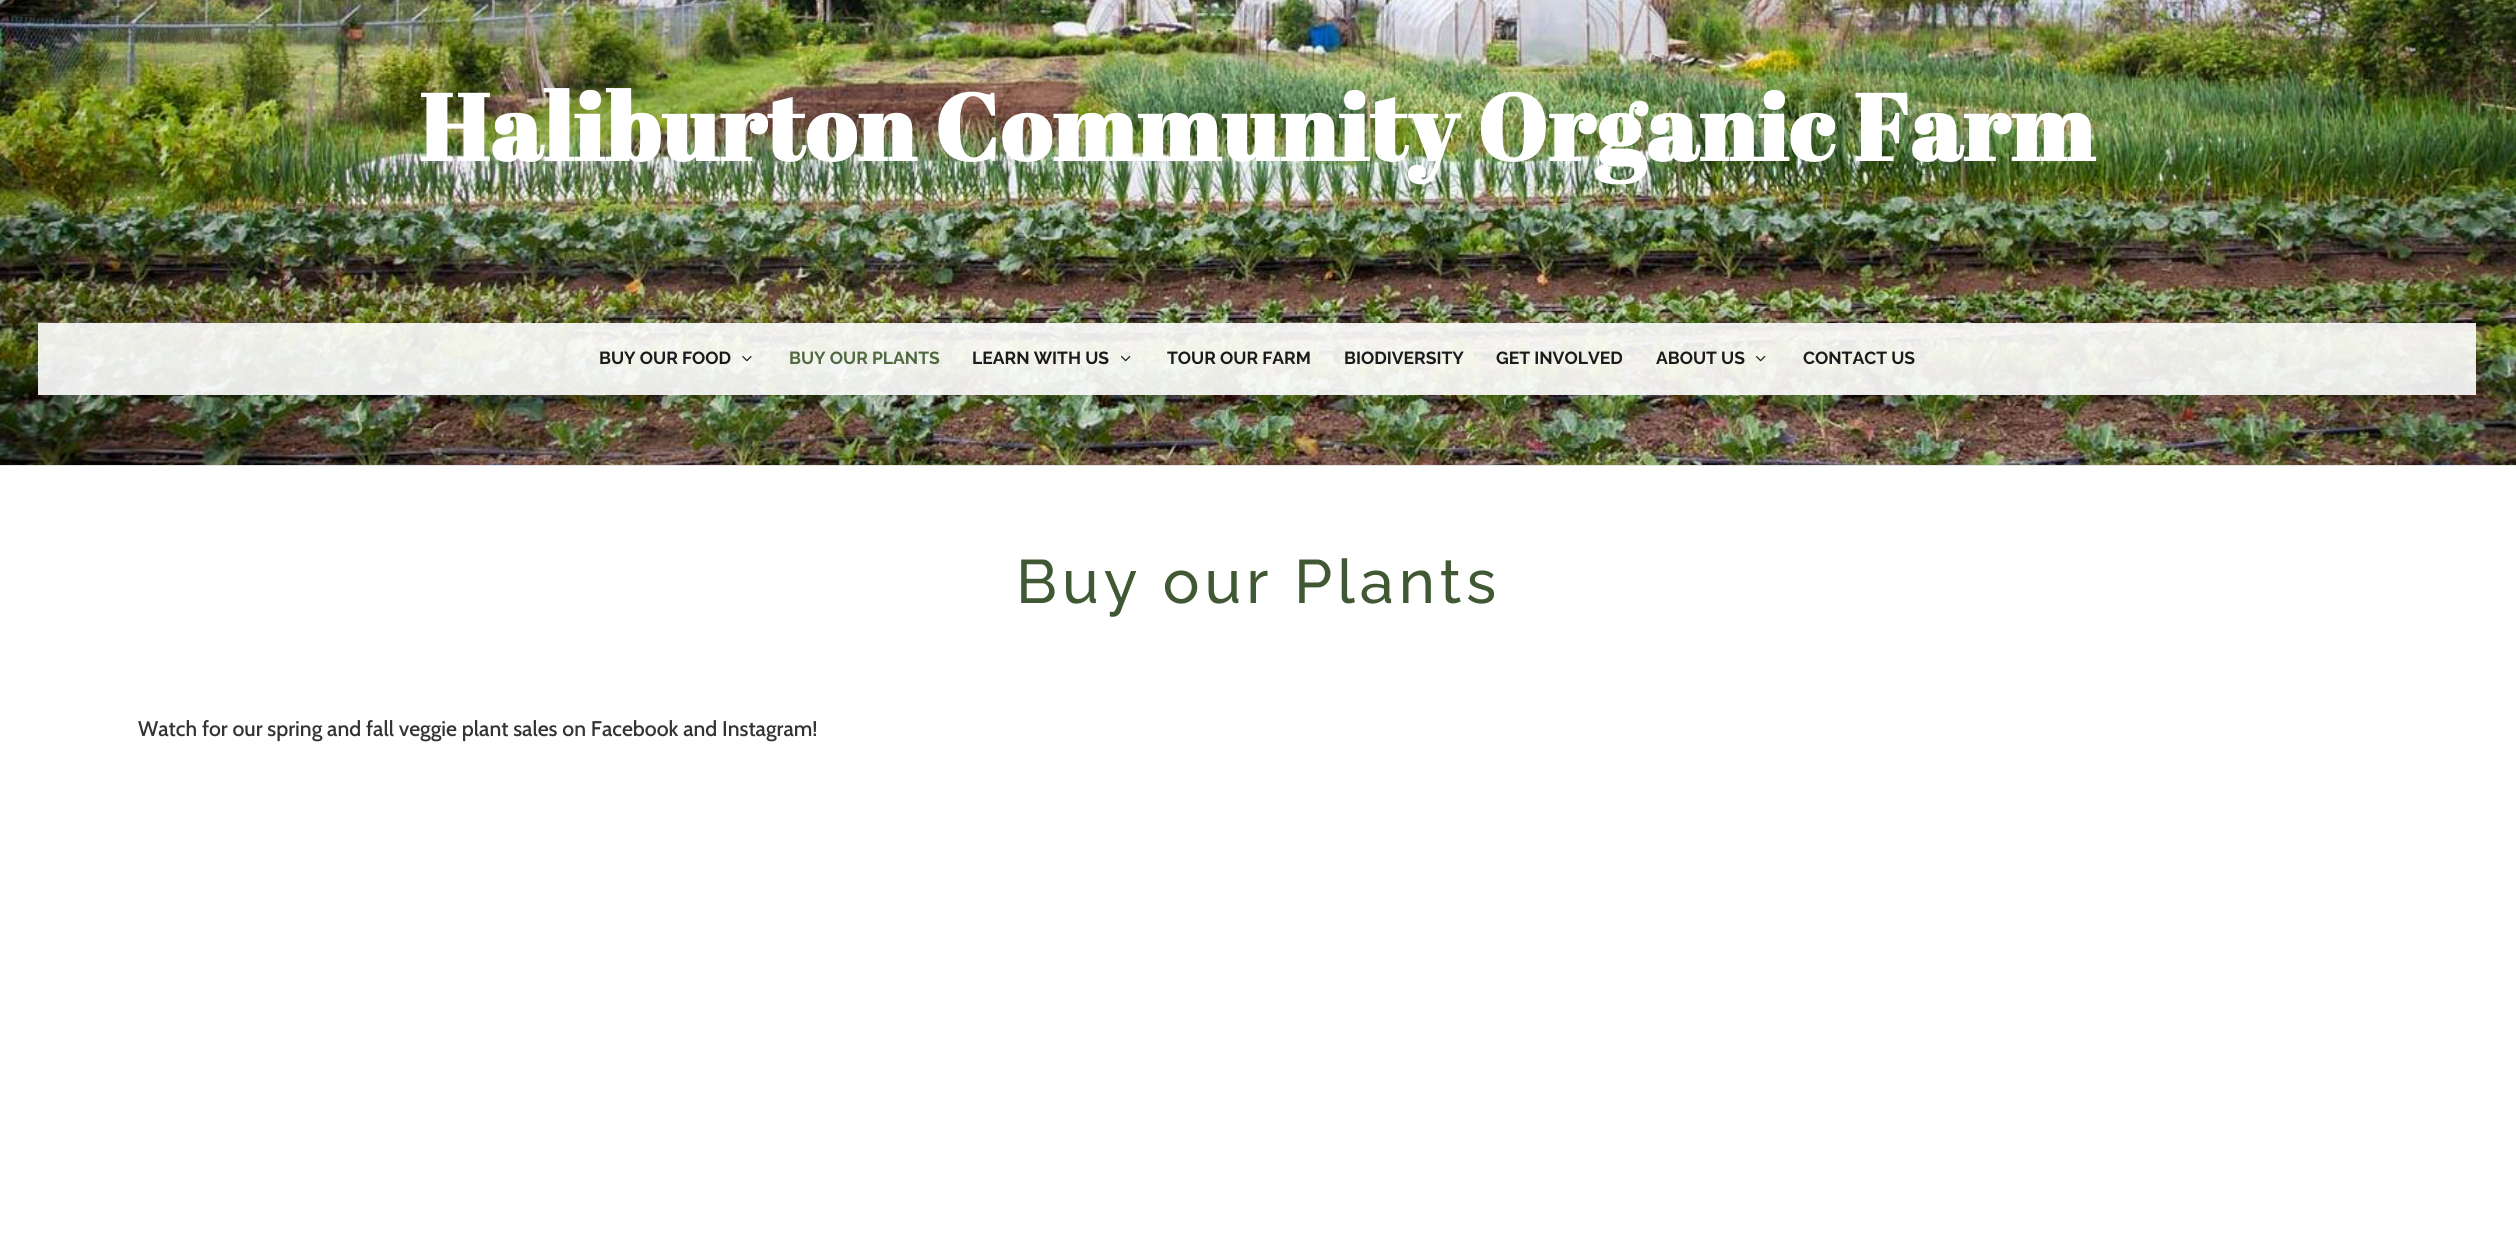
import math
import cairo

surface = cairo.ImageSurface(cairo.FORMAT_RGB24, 2516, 1242)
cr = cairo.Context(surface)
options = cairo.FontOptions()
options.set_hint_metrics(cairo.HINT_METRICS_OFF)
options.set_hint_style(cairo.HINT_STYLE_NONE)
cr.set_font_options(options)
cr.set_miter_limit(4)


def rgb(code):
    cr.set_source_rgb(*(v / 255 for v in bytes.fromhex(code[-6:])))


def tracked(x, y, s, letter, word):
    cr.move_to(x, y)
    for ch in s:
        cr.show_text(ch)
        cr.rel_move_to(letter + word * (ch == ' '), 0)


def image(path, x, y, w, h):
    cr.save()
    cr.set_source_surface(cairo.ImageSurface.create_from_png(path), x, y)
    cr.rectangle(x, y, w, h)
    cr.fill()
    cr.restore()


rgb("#ffffff")
cr.paint()
rgb("#e6e6e6")
cr.rectangle(0, 465, 2516, 1)
cr.fill()
image("img/1.png", 0, 0, 2516, 465)
cr.set_source_rgba(1, 1, 1, 0.9)
cr.rectangle(38, 323, 2438, 72)
cr.fill()
image("img/2.png", 742, 356, 10, 6)
image("img/3.png", 1121, 356, 10, 6)
image("img/4.png", 1756, 356, 10, 6)
cr.select_font_face("Abril Fatface", cairo.FONT_SLANT_NORMAL, cairo.FONT_WEIGHT_BOLD)
cr.set_font_size(93.75)
rgb("#ffffff")
tracked(419, 161, "Haliburton Community Organic Farm", 1.25, 0)
cr.select_font_face("Raleway", cairo.FONT_SLANT_NORMAL, cairo.FONT_WEIGHT_BOLD)
cr.set_font_size(17.5)
rgb("#1a1b1a")
cr.move_to(599, 364)
cr.show_text("BUY OUR FOOD")
rgb("#506941")
cr.move_to(789, 364)
cr.show_text("BUY OUR PLANTS")
rgb("#1a1b1a")
for x, y, s in [
    (972, 364, "LEARN WITH US"),
    (1167, 364, "TOUR OUR FARM"),
    (1344, 364, "BIODIVERSITY"),
    (1496, 364, "GET INVOLVED"),
    (1656, 364, "ABOUT US"),
    (1803, 364, "CONTACT US"),
]:
    cr.move_to(x, y)
    cr.show_text(s)
cr.select_font_face("Raleway Medium")
cr.set_font_size(61.25)
rgb("#405833")
tracked(1016, 603, "Buy our Plants", 5, 0)
cr.select_font_face("Cabin Medium")
cr.set_font_size(21.25)
rgb("#333333")
cr.move_to(138, 736)
cr.show_text("Watch for our spring and fall veggie plant sales on Facebook and Instagram!")
surface.write_to_png("page.png")
